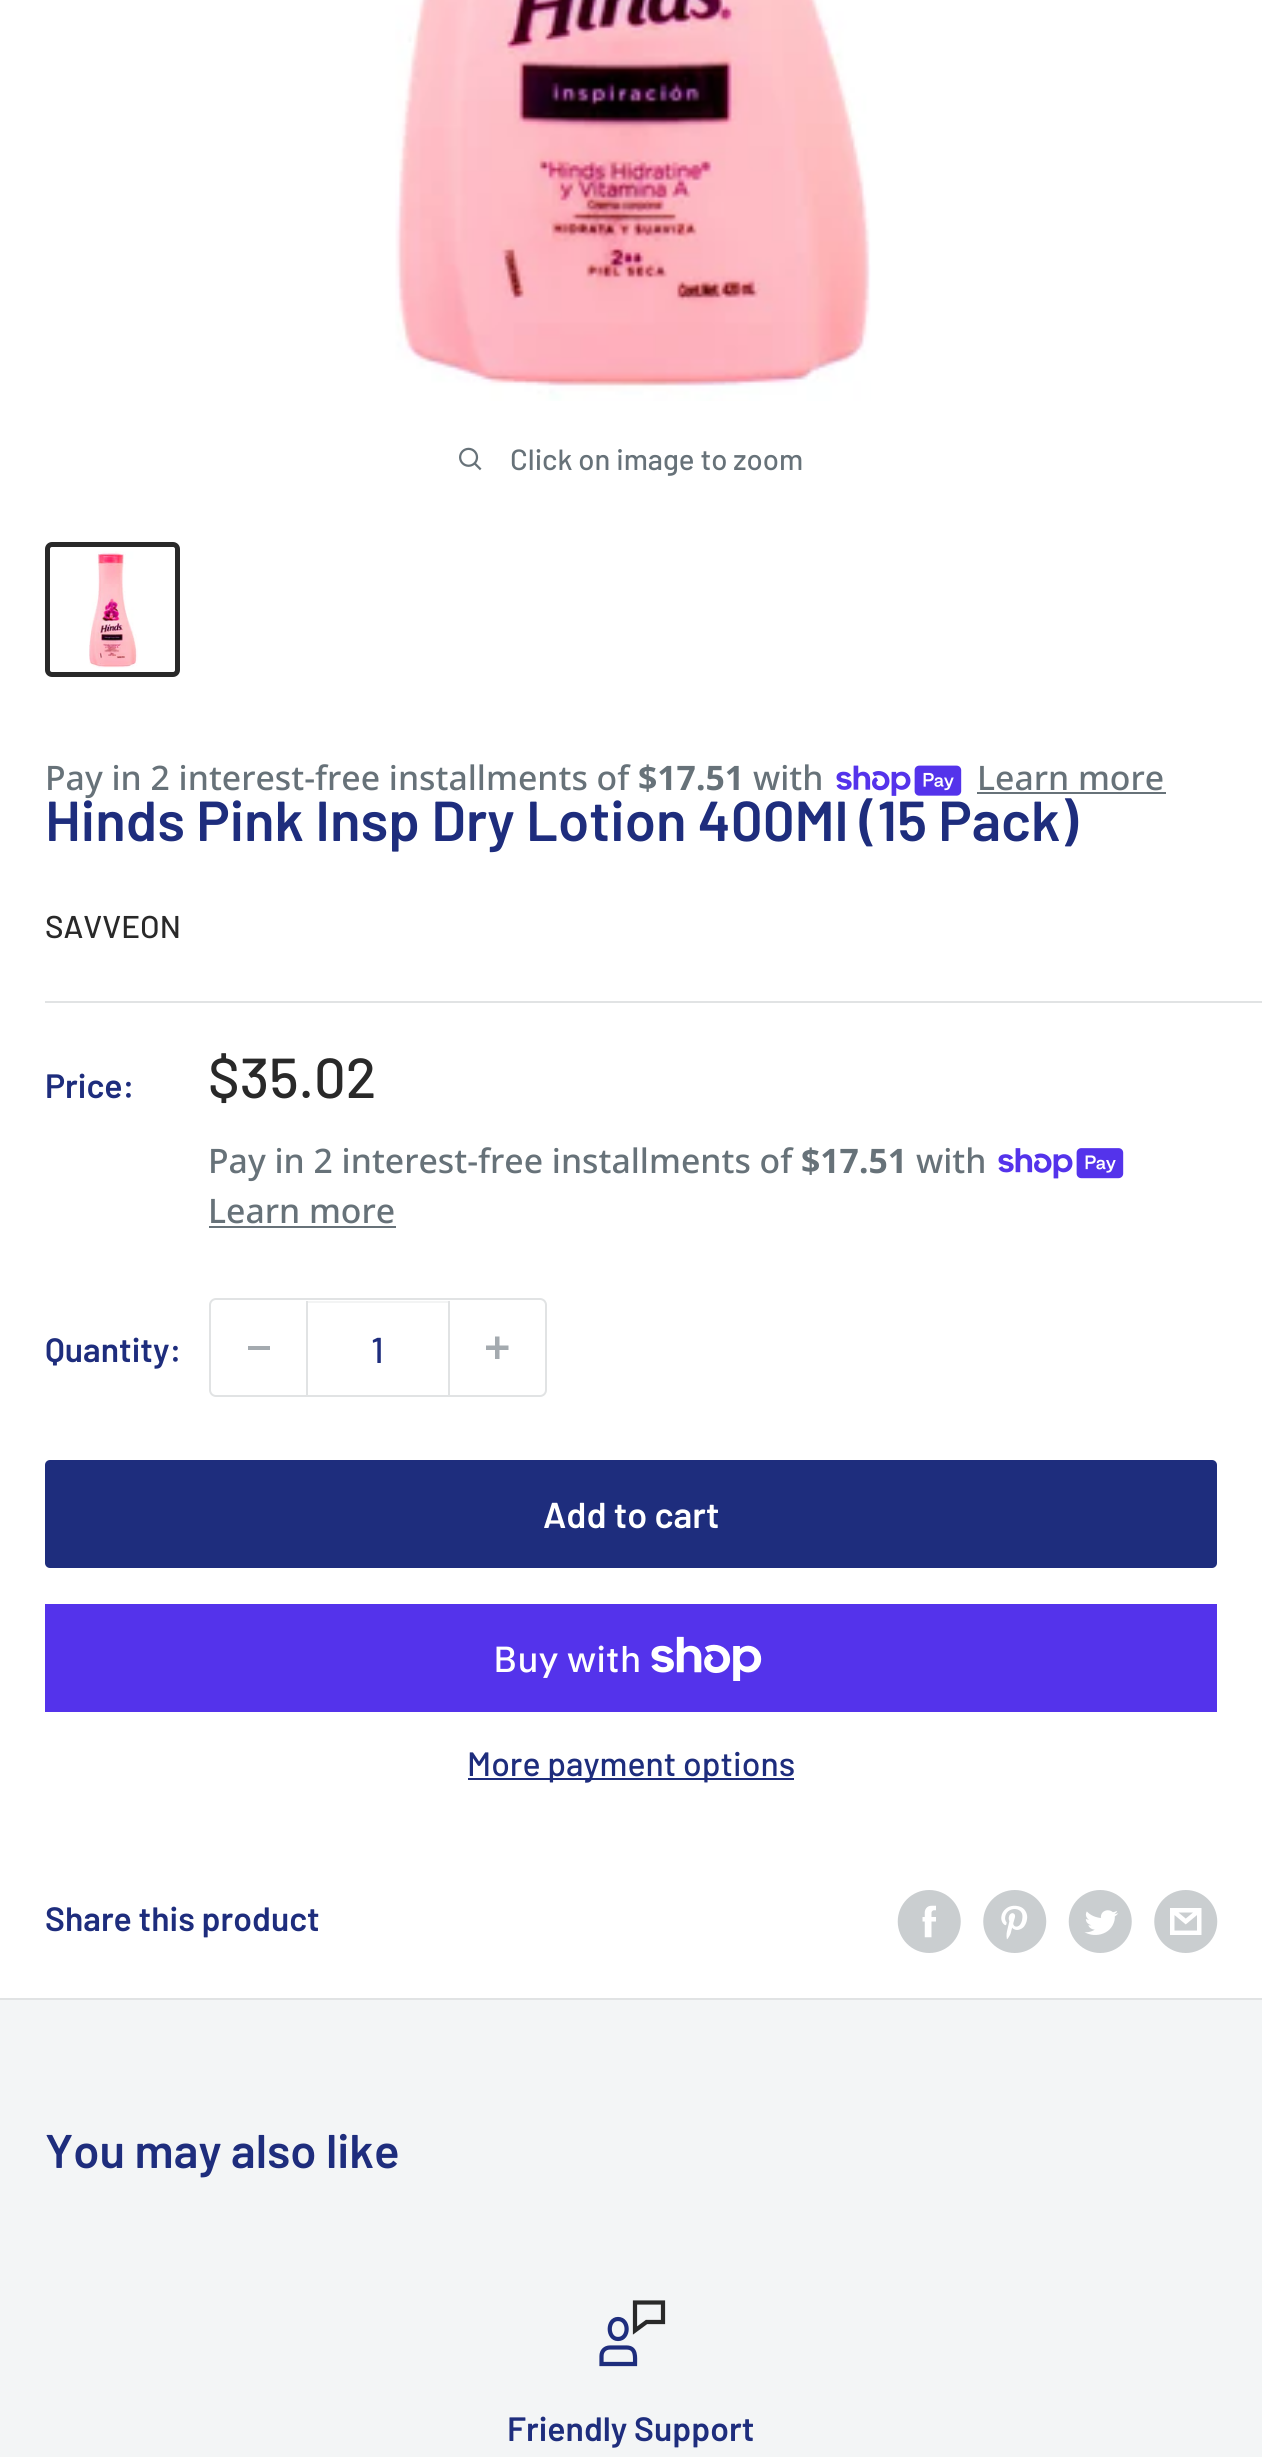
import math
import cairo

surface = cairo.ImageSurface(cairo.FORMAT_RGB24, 1262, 2457)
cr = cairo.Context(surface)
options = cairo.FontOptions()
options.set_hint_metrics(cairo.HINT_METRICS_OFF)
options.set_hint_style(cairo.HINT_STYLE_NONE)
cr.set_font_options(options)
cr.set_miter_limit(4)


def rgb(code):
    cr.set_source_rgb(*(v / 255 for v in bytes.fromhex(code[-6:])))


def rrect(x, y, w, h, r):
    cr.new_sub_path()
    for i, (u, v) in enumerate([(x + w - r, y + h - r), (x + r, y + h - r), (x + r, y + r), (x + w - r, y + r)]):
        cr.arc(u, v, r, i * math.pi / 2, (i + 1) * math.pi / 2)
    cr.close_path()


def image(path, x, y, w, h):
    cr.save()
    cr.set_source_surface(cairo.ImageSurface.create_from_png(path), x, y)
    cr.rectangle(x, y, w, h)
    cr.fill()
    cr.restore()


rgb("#f3f5f6")
cr.paint()
rgb("#ffffff")
cr.rectangle(0, 0, 1262, 1998)
cr.fill()
image("img/1.png", 395, 0, 476, 401)
image("img/2.png", 459, 447, 23, 24)
rrect(47.5, 544.5, 130, 130, 4.5)
rgb("#292929")
cr.set_line_width(5)
cr.stroke()
image("img/3.png", 89, 551, 49, 117)
rgb("#e1e3e4")
cr.rectangle(0, 1998, 1262, 2)
cr.fill()
image("img/4.png", 836, 765, 126, 31)
rgb("#677279")
cr.rectangle(977, 792, 189, 2)
cr.fill()
rgb("#e1e3e4")
cr.rectangle(45, 1001, 1217, 2)
cr.fill()
image("img/5.png", 998, 1148, 126, 31)
rgb("#677279")
cr.rectangle(209, 1226, 187, 2)
cr.fill()
rrect(210, 1299, 336, 97, 6)
rgb("#e1e3e4")
cr.set_line_width(2)
cr.stroke()
for x, y, w, h, color in [
    (248, 1346, 22, 4, "#a4aaaf"),
    (308, 1301, 140, 2, "#f3f4f4"),
    (448, 1301, 2, 94, "#e1e3e4"),
    (306, 1301, 2, 94, "#e1e3e4"),
]:
    rgb(color)
    cr.rectangle(x, y, w, h)
    cr.fill()
image("img/6.png", 486, 1336, 23, 23)
rgb("#1e2d7d")
rrect(45, 1460, 1172, 108, 5)
cr.fill()
rgb("#5433eb")
cr.rectangle(45, 1604, 1172, 108)
cr.fill()
image("img/7.png", 651, 1636, 111, 45)
rgb("#1e2d7d")
cr.rectangle(468, 1778, 326, 2)
cr.fill()
image("img/8.png", 897, 1890, 64, 63)
image("img/9.png", 983, 1890, 64, 63)
image("img/10.png", 1068, 1890, 64, 63)
image("img/11.png", 1154, 1890, 64, 63)
cr.new_path()
cr.move_to(626.5, 2347.5)
cr.line_to(610, 2347.5)
cr.curve_to(605, 2347.5, 601.5, 2351, 601.5, 2356)
cr.line_to(601.5, 2364)
cr.line_to(635, 2364)
cr.curve_to(635, 2357.5, 636.5, 2347.5, 626.5, 2347.5)
cr.close_path()
cr.move_to(618, 2339)
cr.curve_to(607, 2339, 607, 2319, 618, 2319)
cr.curve_to(629.5, 2319, 629.5, 2339, 618, 2339)
cr.close_path()
cr.set_line_width(4.2)
cr.set_line_cap(cairo.LINE_CAP_SQUARE)
cr.stroke()
cr.new_path()
cr.move_to(635, 2302.5)
cr.line_to(635, 2330.5)
cr.line_to(646.5, 2322)
cr.line_to(663, 2322)
cr.line_to(663, 2302.5)
cr.close_path()
rgb("#292929")
cr.stroke()
cr.select_font_face("Barlow Medium")
cr.set_font_size(29.25)
rgb("#677279")
cr.move_to(510, 470)
cr.show_text("Click on image to zoom")
cr.select_font_face("Noto Sans Medium")
cr.set_font_size(33.75)
cr.move_to(45, 790)
cr.show_text("Pay in 2 interest-free installments of")
cr.select_font_face("Noto Sans", cairo.FONT_SLANT_NORMAL, cairo.FONT_WEIGHT_BOLD)
cr.move_to(638, 790)
cr.show_text("$17.51")
cr.select_font_face("Noto Sans Medium")
cr.move_to(753, 790)
cr.show_text("with")
cr.move_to(977, 790)
cr.show_text("Learn more")
cr.select_font_face("Barlow SemiBold")
cr.set_font_size(56.25)
rgb("#1e2d7d")
cr.move_to(45, 841)
cr.show_text("Hinds Pink Insp Dry Lotion 400Ml (15 Pack)")
cr.select_font_face("Barlow Medium")
cr.set_font_size(31.5)
rgb("#292929")
cr.move_to(45, 938)
cr.show_text("SAVVEON")
cr.select_font_face("Barlow SemiBold")
cr.set_font_size(33.75)
rgb("#1e2d7d")
cr.move_to(45, 1098)
cr.show_text("Price:")
cr.select_font_face("Barlow Medium")
cr.set_font_size(56.25)
rgb("#292929")
cr.move_to(208, 1098)
cr.show_text("$35.02")
cr.select_font_face("Noto Sans Medium")
cr.set_font_size(33.75)
rgb("#677279")
cr.move_to(208, 1173)
cr.show_text("Pay in 2 interest-free installments of")
cr.select_font_face("Noto Sans", cairo.FONT_SLANT_NORMAL, cairo.FONT_WEIGHT_BOLD)
cr.move_to(801, 1173)
cr.show_text("$17.51")
cr.select_font_face("Noto Sans Medium")
cr.move_to(916, 1173)
cr.show_text("with")
cr.move_to(208, 1223)
cr.show_text("Learn more")
cr.select_font_face("Barlow SemiBold")
rgb("#1e2d7d")
cr.move_to(45, 1362)
cr.show_text("Quantity:")
cr.select_font_face("Barlow Medium")
cr.set_font_size(36)
cr.move_to(371, 1363)
cr.show_text("1")
cr.select_font_face("Barlow SemiBold")
rgb("#ffffff")
cr.move_to(543, 1528)
cr.show_text("Add to cart")
cr.select_font_face("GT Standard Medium")
cr.move_to(493, 1672)
cr.show_text("Buy with")
cr.select_font_face("Barlow Medium")
cr.set_font_size(33.75)
rgb("#1e2d7d")
cr.move_to(467, 1776)
cr.show_text("More payment options")
cr.select_font_face("Barlow SemiBold")
cr.move_to(45, 1931)
cr.show_text("Share this product")
cr.set_font_size(47.25)
cr.move_to(45, 2168)
cr.show_text("You may also like")
cr.set_font_size(33.75)
cr.move_to(507, 2441)
cr.show_text("Friendly Support")
surface.write_to_png("page.png")
